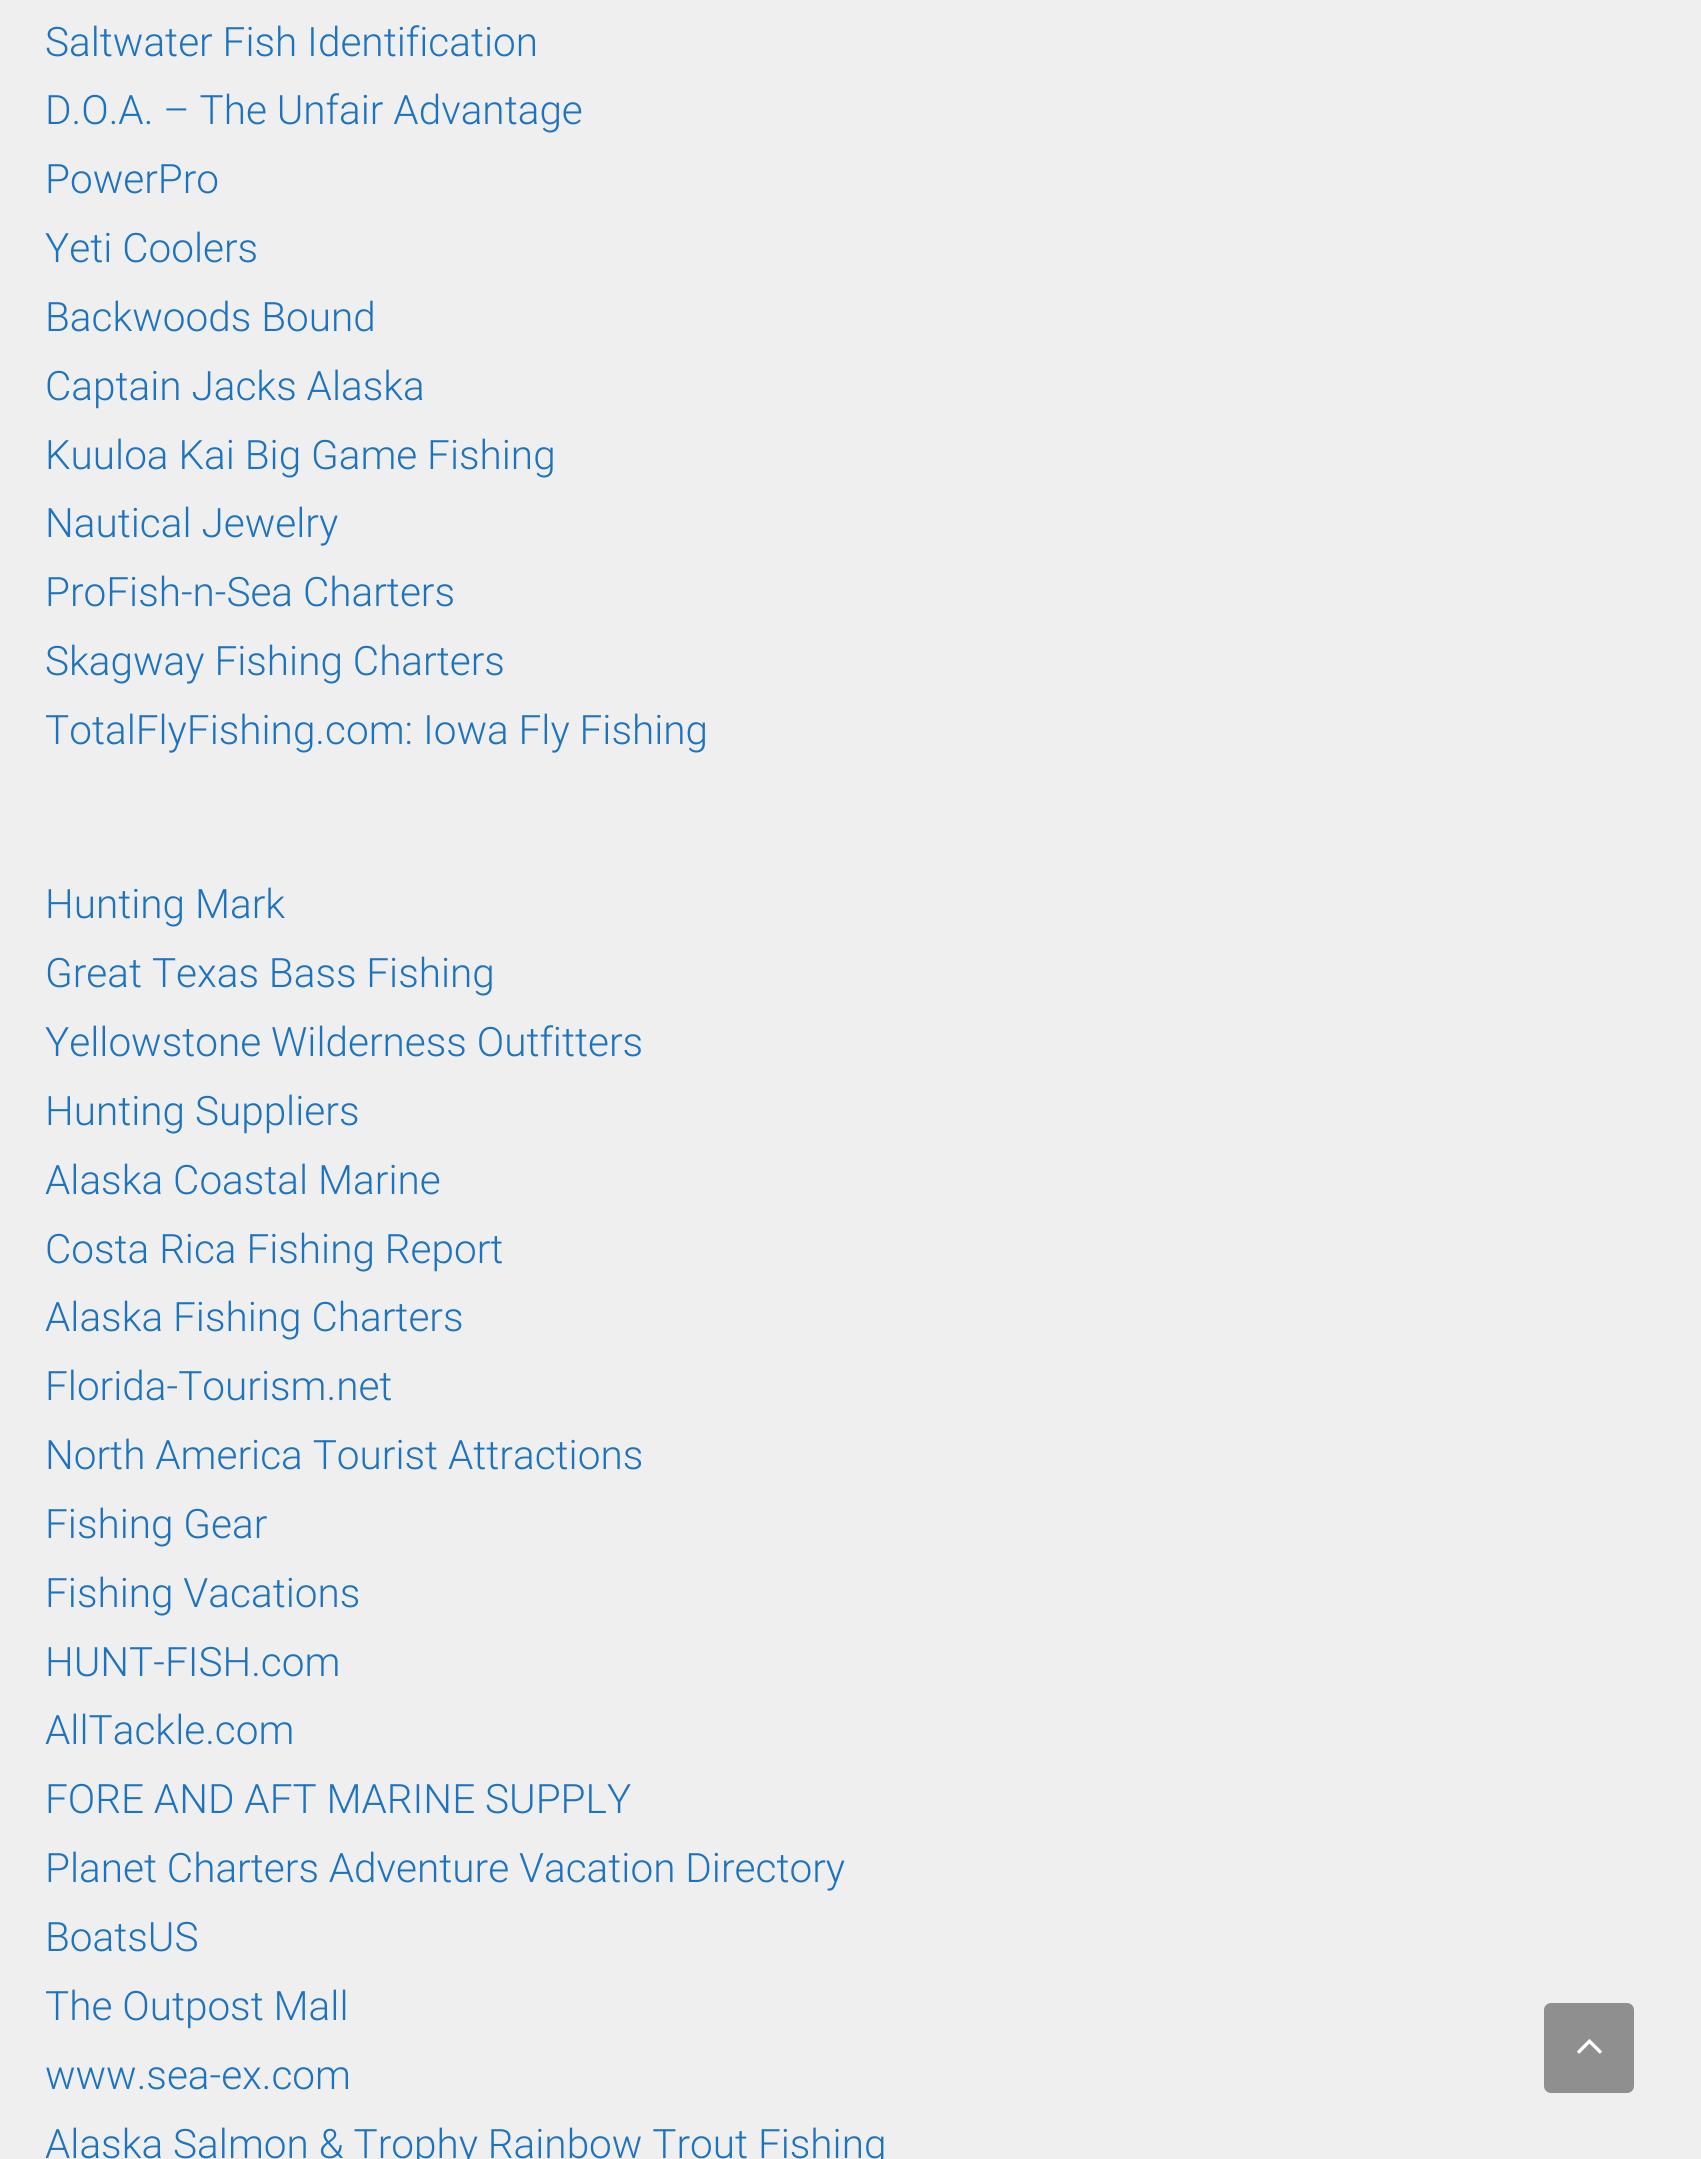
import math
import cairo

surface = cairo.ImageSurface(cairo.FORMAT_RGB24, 1701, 2159)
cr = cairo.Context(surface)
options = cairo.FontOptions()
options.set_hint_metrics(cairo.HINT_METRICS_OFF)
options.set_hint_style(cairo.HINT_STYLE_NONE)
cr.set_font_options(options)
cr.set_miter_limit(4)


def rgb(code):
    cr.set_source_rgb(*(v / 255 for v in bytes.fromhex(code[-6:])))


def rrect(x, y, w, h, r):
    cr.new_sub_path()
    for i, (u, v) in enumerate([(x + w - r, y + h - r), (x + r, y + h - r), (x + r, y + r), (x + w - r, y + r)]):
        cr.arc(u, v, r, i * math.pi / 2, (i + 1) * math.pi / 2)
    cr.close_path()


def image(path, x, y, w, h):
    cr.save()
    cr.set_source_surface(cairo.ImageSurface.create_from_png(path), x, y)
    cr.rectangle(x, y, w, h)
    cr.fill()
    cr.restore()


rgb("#efefef")
cr.paint()
rgb("#8f8f8f")
rrect(1544, 2003, 90, 90, 7)
cr.fill()
image("img/1.png", 1577, 2039, 25, 15)
cr.select_font_face("Roboto Light")
cr.set_font_size(40.5)
rgb("#1e73be")
for x, y, s in [
    (45, 56, "Saltwater Fish Identification"),
    (45, 124, "D.O.A. – The Unfair Advantage"),
    (45, 193, "PowerPro"),
    (45, 262, "Yeti Coolers"),
    (45, 331, "Backwoods Bound"),
    (45, 400, "Captain Jacks Alaska"),
    (45, 469, "Kuuloa Kai Big Game Fishing"),
    (45, 537, "Nautical Jewelry"),
    (45, 606, "ProFish-n-Sea Charters"),
    (45, 675, "Skagway Fishing Charters"),
    (45, 744, "TotalFlyFishing.com: Iowa Fly Fishing"),
    (45, 918, "Hunting Mark"),
    (45, 987, "Great Texas Bass Fishing"),
    (45, 1056, "Yellowstone Wilderness Outfitters"),
    (45, 1125, "Hunting Suppliers"),
    (45, 1194, "Alaska Coastal Marine"),
    (45, 1263, "Costa Rica Fishing Report"),
    (45, 1331, "Alaska Fishing Charters"),
    (45, 1400, "Florida-Tourism.net"),
    (45, 1469, "North America Tourist Attractions"),
    (45, 1538, "Fishing Gear"),
    (45, 1607, "Fishing Vacations"),
    (45, 1676, "HUNT-FISH.com"),
    (45, 1744, "AllTackle.com"),
    (45, 1813, "FORE AND AFT MARINE SUPPLY"),
    (45, 1882, "Planet Charters Adventure Vacation Directory"),
    (45, 1951, "BoatsUS"),
    (45, 2020, "The Outpost Mall"),
    (45, 2089, "www.sea-ex.com"),
    (45, 2158, "Alaska Salmon & Trophy Rainbow Trout Fishing"),
]:
    cr.move_to(x, y)
    cr.show_text(s)
surface.write_to_png("page.png")
